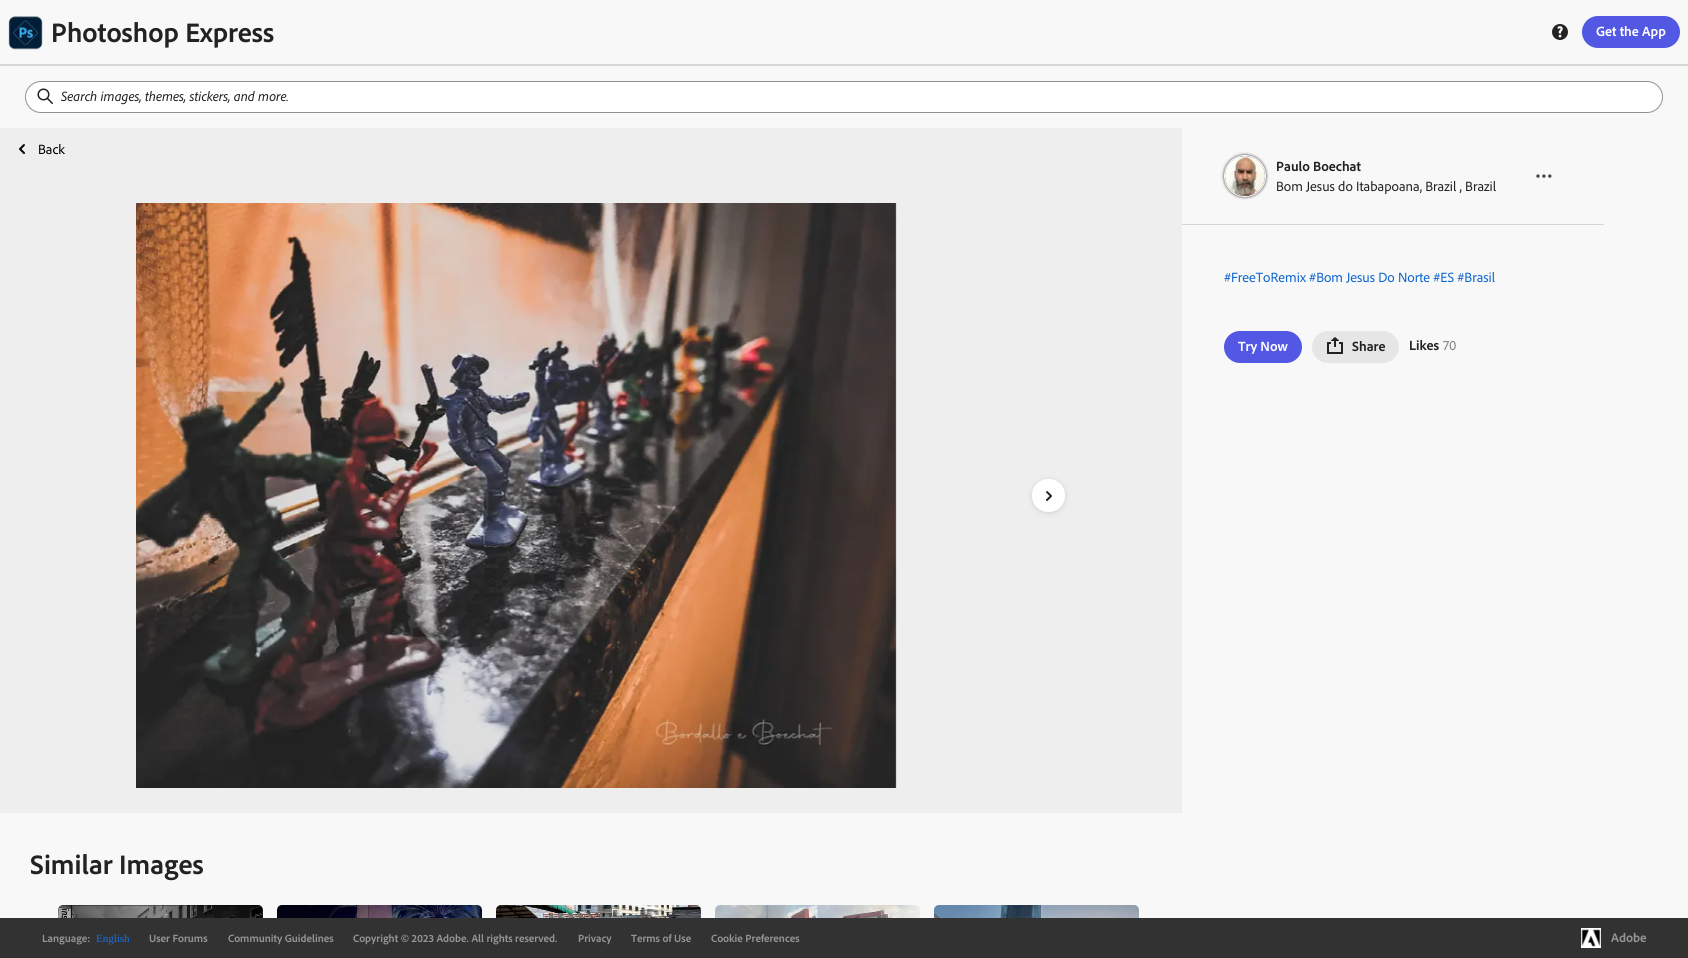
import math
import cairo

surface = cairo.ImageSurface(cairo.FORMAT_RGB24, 1688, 958)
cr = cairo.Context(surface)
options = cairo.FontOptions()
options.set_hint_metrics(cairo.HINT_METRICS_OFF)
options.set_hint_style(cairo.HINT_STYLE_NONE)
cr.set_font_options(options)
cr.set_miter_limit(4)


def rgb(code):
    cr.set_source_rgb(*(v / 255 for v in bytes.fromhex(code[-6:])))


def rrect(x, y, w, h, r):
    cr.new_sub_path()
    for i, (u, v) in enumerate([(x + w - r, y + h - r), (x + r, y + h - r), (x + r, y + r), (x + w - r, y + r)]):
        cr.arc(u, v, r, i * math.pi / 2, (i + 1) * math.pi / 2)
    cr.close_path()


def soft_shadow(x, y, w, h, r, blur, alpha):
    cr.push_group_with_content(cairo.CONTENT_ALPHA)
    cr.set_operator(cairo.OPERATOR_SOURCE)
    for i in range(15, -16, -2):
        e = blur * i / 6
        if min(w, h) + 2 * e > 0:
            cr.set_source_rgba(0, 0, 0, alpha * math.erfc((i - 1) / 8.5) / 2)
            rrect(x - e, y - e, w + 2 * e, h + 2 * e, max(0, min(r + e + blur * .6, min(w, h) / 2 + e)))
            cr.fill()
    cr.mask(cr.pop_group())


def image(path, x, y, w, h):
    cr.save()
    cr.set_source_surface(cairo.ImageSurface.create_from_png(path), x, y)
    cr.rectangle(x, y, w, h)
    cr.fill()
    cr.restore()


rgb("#f8f8f8")
cr.paint()
rgb("#d5d5d5")
cr.rectangle(0, 64, 1688, 2)
cr.fill()
image("img/1.png", 8, 16, 35, 34)
image("img/2.png", 1552, 24, 16, 16)
rgb("#5258e4")
rrect(1582, 16, 98, 32, 16)
cr.fill()
rgb("#ffffff")
rrect(25.5, 81.5, 1637, 31, 15.5)
cr.fill_preserve()
rgb("#909090")
cr.set_line_width(1)
cr.stroke()
image("img/3.png", 37, 88, 16, 16)
rgb("#eeeeee")
cr.rectangle(0, 128, 1182, 685)
cr.fill()
image("img/4.png", 19, 144, 6, 10)
image("img/5.png", 136, 203, 761, 585)
rgb("#d4cdcd")
soft_shadow(1032, 480, 33, 33, 16, 2.5, 1)
rgb("#ffffff")
rrect(1032, 479, 33, 33, 16)
cr.fill()
image("img/6.png", 1046, 491, 6, 10)
rgb("#323232")
soft_shadow(1224, 155, 42, 42, 21, 1.5, 1)
cr.arc(1245, 176, 20.5, 0, 2 * math.pi)
rgb("#fafafa")
cr.stroke()
image("img/7.png", 1225, 156, 40, 40)
rgb("#464646")
cr.arc(1543.9, 176.1, 1.7, 0, 2 * math.pi)
cr.fill()
cr.arc(1549.8, 176.1, 1.7, 0, 2 * math.pi)
cr.fill()
cr.arc(1538, 176.1, 1.7, 0, 2 * math.pi)
cr.fill()
rgb("#d5d5d5")
rrect(1182, 224, 422, 1, 0.5)
cr.fill()
rgb("#5258e4")
rrect(1224, 331, 78, 32, 16)
cr.fill()
rgb("#e6e6e6")
rrect(1312, 331, 87, 32, 16)
cr.fill()
image("img/8.png", 1327, 337, 16, 17)
image("img/9.png", 58, 905, 205, 13)
image("img/10.png", 277, 905, 205, 13)
image("img/11.png", 496, 905, 205, 13)
image("img/12.png", 715, 905, 205, 13)
image("img/13.png", 934, 905, 205, 13)
rgb("#323232")
cr.rectangle(0, 918, 1688, 40)
cr.fill()
rgb("#ffffff")
cr.rectangle(1581, 928, 20, 20)
cr.fill()
image("img/14.png", 1581, 929, 20, 18)
cr.select_font_face("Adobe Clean", cairo.FONT_SLANT_NORMAL, cairo.FONT_WEIGHT_BOLD)
cr.set_font_size(28)
rgb("#222222")
cr.move_to(51, 42)
cr.show_text("Photoshop Express")
cr.set_font_size(14)
rgb("#ffffff")
cr.move_to(1596, 36)
cr.show_text("Get the App")
cr.select_font_face("Adobe Clean", cairo.FONT_SLANT_ITALIC)
rgb("#222222")
cr.move_to(61, 101)
cr.show_text("Search images, themes, stickers, and more.")
cr.select_font_face("Adobe Clean")
rgb("#000000")
cr.move_to(38, 154)
cr.show_text("Back")
cr.select_font_face("Adobe Clean", cairo.FONT_SLANT_NORMAL, cairo.FONT_WEIGHT_BOLD)
rgb("#222222")
cr.move_to(1276, 171)
cr.show_text("Paulo Boechat")
cr.select_font_face("Adobe Clean")
cr.move_to(1276, 191)
cr.show_text("Bom Jesus do Itabapoana, Brazil , Brazil")
rgb("#0d66d0")
cr.move_to(1224, 282)
cr.show_text("#FreeToRemix #Bom Jesus Do Norte #ES #Brasil")
cr.select_font_face("Adobe Clean", cairo.FONT_SLANT_NORMAL, cairo.FONT_WEIGHT_BOLD)
rgb("#ffffff")
cr.move_to(1238, 351)
cr.show_text("Try Now")
rgb("#222222")
cr.move_to(1352, 351)
cr.show_text("Share")
cr.move_to(1409, 350)
cr.show_text("Likes")
cr.select_font_face("Adobe Clean")
rgb("#808080")
cr.move_to(1443, 350)
cr.show_text("70")
cr.select_font_face("Adobe Clean", cairo.FONT_SLANT_NORMAL, cairo.FONT_WEIGHT_BOLD)
cr.set_font_size(28)
rgb("#222222")
cr.move_to(30, 874)
cr.show_text("Similar Images")
cr.set_font_size(11)
rgb("#959595")
cr.move_to(42, 942)
cr.show_text("Language:")
cr.select_font_face("Liberation Serif")
rgb("#1473e6")
cr.move_to(96, 942)
cr.show_text("English")
cr.select_font_face("Adobe Clean", cairo.FONT_SLANT_NORMAL, cairo.FONT_WEIGHT_BOLD)
rgb("#959595")
for x, y, s in [
    (149, 942, "User Forums"),
    (228, 942, "Community Guidelines"),
    (353, 942, "Copyright © 2023 Adobe. All rights reserved."),
    (578, 942, "Privacy"),
    (631, 942, "Terms of Use"),
    (711, 942, "Cookie Preferences"),
]:
    cr.move_to(x, y)
    cr.show_text(s)
cr.set_font_size(13)
cr.move_to(1611, 942)
cr.show_text("Adobe")
surface.write_to_png("page.png")
